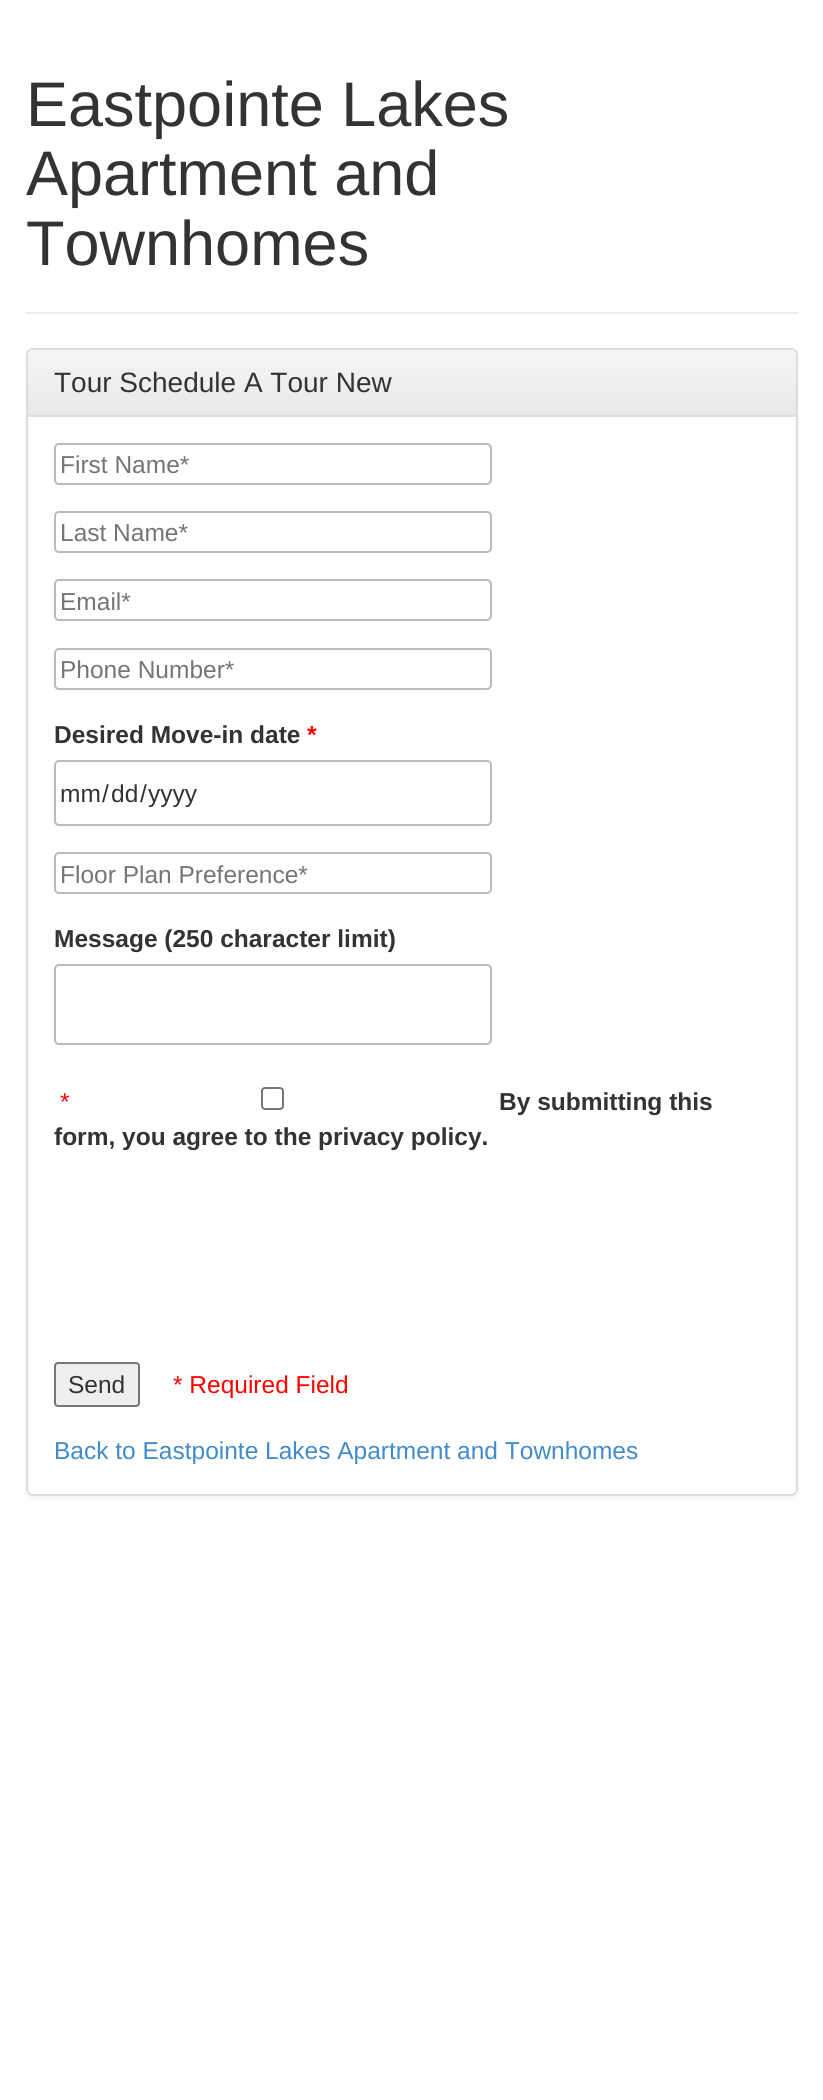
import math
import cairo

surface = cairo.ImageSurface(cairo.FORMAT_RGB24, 823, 2100)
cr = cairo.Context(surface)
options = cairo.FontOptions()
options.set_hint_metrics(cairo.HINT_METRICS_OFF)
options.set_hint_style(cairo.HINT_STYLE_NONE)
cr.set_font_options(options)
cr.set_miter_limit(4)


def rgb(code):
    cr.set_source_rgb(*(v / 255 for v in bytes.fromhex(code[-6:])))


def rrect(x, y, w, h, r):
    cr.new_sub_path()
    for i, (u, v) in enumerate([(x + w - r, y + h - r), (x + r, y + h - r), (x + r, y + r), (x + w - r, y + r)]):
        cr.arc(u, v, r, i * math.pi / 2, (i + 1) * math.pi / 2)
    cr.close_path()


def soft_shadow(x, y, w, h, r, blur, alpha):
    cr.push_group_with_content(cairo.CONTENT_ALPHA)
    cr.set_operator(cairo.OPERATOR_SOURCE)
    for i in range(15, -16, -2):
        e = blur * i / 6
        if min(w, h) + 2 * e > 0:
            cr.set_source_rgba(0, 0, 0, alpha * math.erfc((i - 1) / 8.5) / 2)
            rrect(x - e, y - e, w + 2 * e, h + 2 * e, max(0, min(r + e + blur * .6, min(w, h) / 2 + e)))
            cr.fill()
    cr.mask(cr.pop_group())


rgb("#ffffff")
cr.paint()
rgb("#eeeeee")
cr.rectangle(26, 312, 772, 2)
cr.fill()
rgb("#000000")
soft_shadow(26, 350, 772, 1148, 7, 2, 0.05)
rgb("#ffffff")
rrect(27, 349, 770, 1146, 6)
cr.fill_preserve()
rgb("#dddddd")
cr.stroke()
gradient = cairo.LinearGradient(412, 350, 412, 415)
gradient.add_color_stop_rgba(0, 0.961, 0.961, 0.961, 1)
gradient.add_color_stop_rgba(1, 0.91, 0.91, 0.91, 1)
cr.set_source(gradient)
cr.new_path()
cr.move_to(33, 350)
cr.line_to(791, 350)
cr.curve_to(794, 350, 796, 352, 796, 355)
cr.line_to(796, 415)
cr.line_to(28, 415)
cr.line_to(28, 355)
cr.curve_to(28, 352, 30, 350, 33, 350)
cr.close_path()
cr.fill()
rgb("#dddddd")
cr.rectangle(28, 415, 768, 2)
cr.fill()
rrect(55, 444, 436, 40, 4)
rgb("#bbbbbb")
cr.stroke()
rrect(55, 512, 436, 40, 4)
cr.stroke()
rrect(55, 580, 436, 40, 4)
cr.stroke()
rrect(55, 649, 436, 40, 4)
cr.stroke()
rrect(55, 761, 436, 64, 4)
cr.stroke()
rrect(55, 853, 436, 40, 4)
cr.stroke()
rrect(55, 965, 436, 79, 4)
cr.stroke()
rrect(262, 1088, 21, 21, 3)
rgb("#767676")
cr.stroke()
rgb("#efefef")
rrect(55, 1363, 84, 43, 3)
cr.fill_preserve()
rgb("#767676")
cr.stroke()
cr.select_font_face("Liberation Sans")
cr.set_font_size(63)
rgb("#333333")
for x, y, s in [
    (26, 126, "Eastpointe Lakes"),
    (26, 195, "Apartment and"),
    (26, 265, "Townhomes"),
]:
    cr.move_to(x, y)
    cr.show_text(s)
cr.set_font_size(28)
cr.move_to(54, 392)
cr.show_text("Tour Schedule A Tour New")
cr.set_font_size(24.5)
rgb("#757575")
for x, y, s in [
    (60, 473, "First Name*"),
    (60, 541, "Last Name*"),
    (60, 610, "Email*"),
    (60, 678, "Phone Number*"),
]:
    cr.move_to(x, y)
    cr.show_text(s)
cr.select_font_face("Liberation Sans", cairo.FONT_SLANT_NORMAL, cairo.FONT_WEIGHT_BOLD)
rgb("#333333")
cr.move_to(54, 743)
cr.show_text("Desired Move-in date")
rgb("#ff0000")
cr.move_to(307, 743)
cr.show_text("*")
cr.select_font_face("Liberation Sans")
rgb("#333333")
for x, y, s in [
    (60, 802, "mm"),
    (102, 802, "/"),
    (111, 802, "dd"),
    (140, 802, "/"),
    (148, 802, "yyyy"),
]:
    cr.move_to(x, y)
    cr.show_text(s)
rgb("#757575")
cr.move_to(60, 883)
cr.show_text("Floor Plan Preference*")
cr.select_font_face("Liberation Sans", cairo.FONT_SLANT_NORMAL, cairo.FONT_WEIGHT_BOLD)
rgb("#333333")
cr.move_to(54, 947)
cr.show_text("Message (250 character limit)")
cr.select_font_face("Liberation Sans")
rgb("#ff0000")
cr.move_to(60, 1110)
cr.show_text("*")
cr.select_font_face("Liberation Sans", cairo.FONT_SLANT_NORMAL, cairo.FONT_WEIGHT_BOLD)
rgb("#333333")
cr.move_to(499, 1110)
cr.show_text("By submitting this")
cr.move_to(54, 1145)
cr.show_text("form, you agree to the privacy policy.")
cr.select_font_face("Liberation Sans")
cr.move_to(68, 1393)
cr.show_text("Send")
rgb("#ff0000")
cr.move_to(173, 1393)
cr.show_text("* Required Field")
rgb("#428bca")
cr.move_to(54, 1459)
cr.show_text("Back to Eastpointe Lakes Apartment and Townhomes")
surface.write_to_png("page.png")
